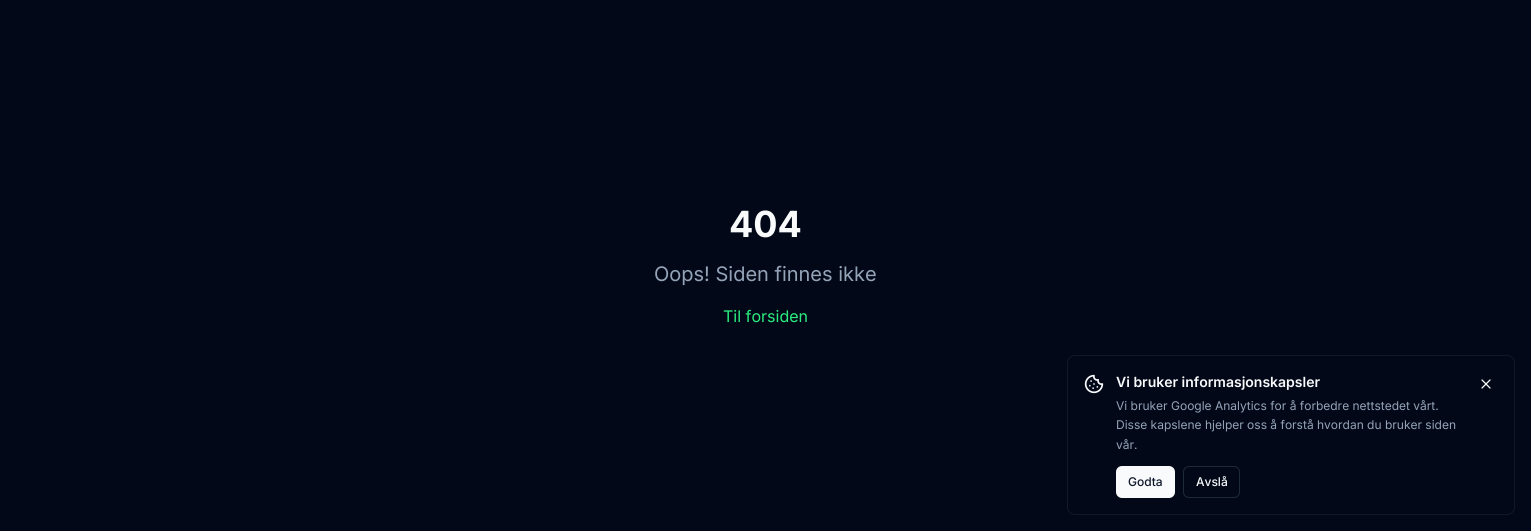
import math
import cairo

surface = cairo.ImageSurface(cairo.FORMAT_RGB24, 1531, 531)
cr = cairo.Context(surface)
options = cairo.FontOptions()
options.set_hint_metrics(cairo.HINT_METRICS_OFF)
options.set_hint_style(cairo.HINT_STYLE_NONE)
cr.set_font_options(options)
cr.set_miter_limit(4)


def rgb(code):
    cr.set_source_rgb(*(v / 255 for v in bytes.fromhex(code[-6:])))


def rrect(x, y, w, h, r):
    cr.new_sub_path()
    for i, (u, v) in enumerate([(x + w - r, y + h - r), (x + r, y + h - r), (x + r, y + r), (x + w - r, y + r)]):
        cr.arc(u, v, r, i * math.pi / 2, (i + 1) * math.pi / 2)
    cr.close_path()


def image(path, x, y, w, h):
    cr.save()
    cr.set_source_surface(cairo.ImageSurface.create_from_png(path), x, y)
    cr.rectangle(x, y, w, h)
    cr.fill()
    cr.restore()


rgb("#020817")
cr.paint()
rrect(1067.5, 355.5, 447, 159, 7.5)
rgb("#101829")
cr.set_line_width(1)
cr.stroke()
image("img/1.png", 1084, 374, 20, 20)
rgb("#f8fafc")
rrect(1116, 466, 59, 32, 6)
cr.fill()
rrect(1183.5, 466.5, 56, 31, 5.5)
rgb("#1e293b")
cr.stroke()
image("img/2.png", 1481, 379, 10, 10)
cr.select_font_face("Inter", cairo.FONT_SLANT_NORMAL, cairo.FONT_WEIGHT_BOLD)
cr.set_font_size(36)
rgb("#f8fafc")
cr.move_to(729, 237)
cr.show_text("404")
cr.select_font_face("Inter")
cr.set_font_size(20)
rgb("#94a3b8")
cr.move_to(654, 281)
cr.show_text("Oops! Siden finnes ikke")
cr.set_font_size(16)
rgb("#2bee7f")
cr.move_to(723, 322)
cr.show_text("Til forsiden")
cr.select_font_face("Inter SemiBold")
cr.set_font_size(14)
rgb("#f8fafc")
cr.move_to(1116, 387)
cr.show_text("Vi bruker informasjonskapsler")
cr.select_font_face("Inter")
cr.set_font_size(12)
rgb("#94a3b8")
for x, y, s in [
    (1116, 410, "Vi bruker Google Analytics for å forbedre nettstedet vårt."),
    (1116, 429, "Disse kapslene hjelper oss å forstå hvordan du bruker siden"),
    (1116, 449, "vår."),
]:
    cr.move_to(x, y)
    cr.show_text(s)
cr.select_font_face("Inter Medium")
rgb("#0f172a")
cr.move_to(1128, 486)
cr.show_text("Godta")
rgb("#f8fafc")
cr.move_to(1196, 486)
cr.show_text("Avslå")
surface.write_to_png("page.png")
